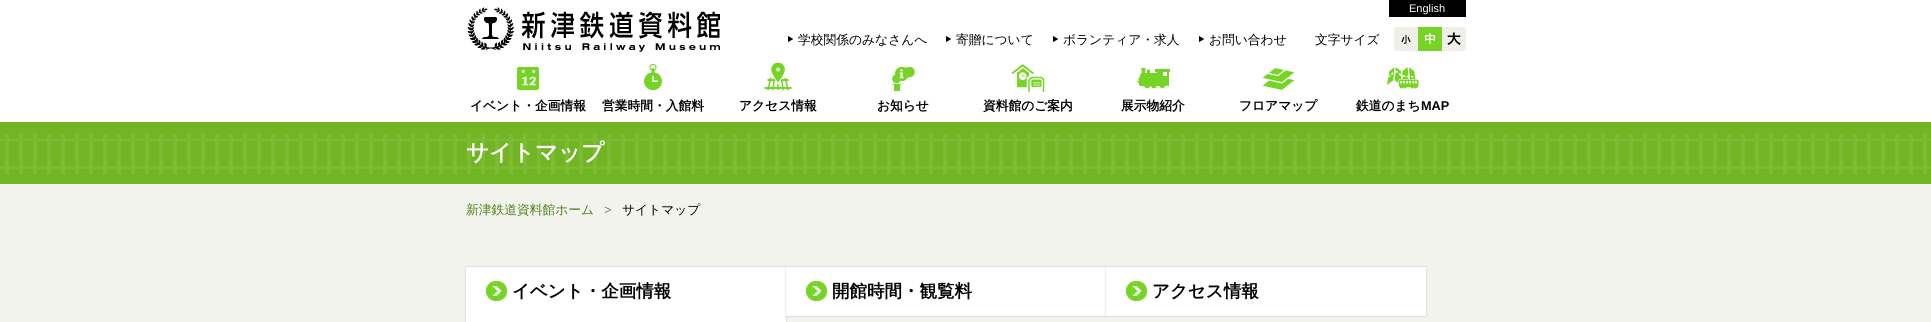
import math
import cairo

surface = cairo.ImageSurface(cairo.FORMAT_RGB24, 1931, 322)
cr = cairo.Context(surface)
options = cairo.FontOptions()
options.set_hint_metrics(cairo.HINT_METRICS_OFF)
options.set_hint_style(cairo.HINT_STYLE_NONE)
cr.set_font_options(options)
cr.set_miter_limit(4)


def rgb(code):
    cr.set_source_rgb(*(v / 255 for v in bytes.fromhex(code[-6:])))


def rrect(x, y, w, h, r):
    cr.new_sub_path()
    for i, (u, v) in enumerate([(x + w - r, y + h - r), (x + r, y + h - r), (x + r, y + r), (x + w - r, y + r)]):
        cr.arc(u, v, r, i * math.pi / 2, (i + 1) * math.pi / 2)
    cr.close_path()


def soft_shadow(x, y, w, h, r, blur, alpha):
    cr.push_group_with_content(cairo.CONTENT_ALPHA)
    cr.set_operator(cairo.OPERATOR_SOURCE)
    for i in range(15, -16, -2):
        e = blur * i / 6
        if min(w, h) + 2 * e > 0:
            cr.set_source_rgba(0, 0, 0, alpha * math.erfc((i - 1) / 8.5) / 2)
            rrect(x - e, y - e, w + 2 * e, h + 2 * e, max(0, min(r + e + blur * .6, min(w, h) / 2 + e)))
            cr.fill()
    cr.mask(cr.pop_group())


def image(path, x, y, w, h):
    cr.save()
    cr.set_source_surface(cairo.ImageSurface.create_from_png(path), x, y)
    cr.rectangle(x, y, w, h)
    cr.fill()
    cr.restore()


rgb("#f3f3ed")
cr.paint()
rgb("#ffffff")
cr.rectangle(0, 0, 1931, 122)
cr.fill()
image("img/1.png", 467, 7, 253, 45)
image("img/2.png", 788, 36, 5, 6)
image("img/2.png", 946, 36, 5, 6)
image("img/2.png", 1053, 36, 5, 6)
image("img/2.png", 1199, 36, 5, 6)
image("img/3.png", 1394, 27, 24, 24)
image("img/4.png", 1418, 27, 24, 24)
image("img/5.png", 1442, 27, 24, 24)
rgb("#000000")
cr.rectangle(1389, 0, 77, 17)
cr.fill()
image("img/6.png", 517, 67, 22, 23)
image("img/7.png", 644, 63, 18, 27)
image("img/8.png", 764, 62, 28, 29)
image("img/9.png", 892, 67, 23, 24)
image("img/10.png", 1011, 64, 34, 28)
image("img/11.png", 1137, 68, 33, 21)
image("img/12.png", 1262, 68, 33, 22)
image("img/13.png", 1387, 67, 32, 22)
rgb("#72b524")
cr.rectangle(0, 122, 1931, 62)
cr.fill()
image("img/14.png", 0, 133, 1931, 41)
rgb("#000000")
soft_shadow(466, 267, 320, 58, 0, 1, 0.2)
rgb("#ffffff")
cr.rectangle(466, 267, 320, 55)
cr.fill()
image("img/15.png", 486, 281, 21, 20)
rgb("#000000")
soft_shadow(786, 267, 320, 49, 0, 1, 0.2)
rgb("#ffffff")
cr.rectangle(786, 267, 320, 49)
cr.fill()
image("img/16.png", 806, 281, 21, 20)
rgb("#000000")
soft_shadow(1106, 267, 320, 49, 0, 1, 0.2)
rgb("#ffffff")
cr.rectangle(1106, 267, 320, 49)
cr.fill()
image("img/15.png", 1126, 281, 21, 20)
cr.select_font_face("WenQuanYi Zen Hei Medium")
cr.set_font_size(12.75)
rgb("#000000")
for x, y, s in [
    (798, 44, "学校関係のみなさんへ"),
    (956, 44, "寄贈について"),
    (1063, 44, "ボランティア・求人"),
    (1209, 44, "お問い合わせ"),
    (1315, 44, "文字サイズ"),
]:
    cr.move_to(x, y)
    cr.show_text(s)
cr.select_font_face("Liberation Sans")
cr.set_font_size(11)
rgb("#ffffff")
cr.move_to(1409, 12)
cr.show_text("English")
cr.select_font_face("WenQuanYi Zen Hei", cairo.FONT_SLANT_NORMAL, cairo.FONT_WEIGHT_BOLD)
cr.set_font_size(12.75)
rgb("#000000")
for x, y, s in [
    (470, 110, "イベント・企画情報"),
    (602, 110, "営業時間・入館料"),
    (739, 110, "アクセス情報"),
    (877, 110, "お知らせ"),
    (983, 110, "資料館のご案内"),
    (1121, 110, "展示物紹介"),
    (1239, 110, "フロアマップ"),
    (1356, 110, "鉄道のまち"),
]:
    cr.move_to(x, y)
    cr.show_text(s)
cr.select_font_face("Liberation Sans", cairo.FONT_SLANT_NORMAL, cairo.FONT_WEIGHT_BOLD)
cr.move_to(1421, 110)
cr.show_text("MAP")
cr.select_font_face("WenQuanYi Zen Hei", cairo.FONT_SLANT_NORMAL, cairo.FONT_WEIGHT_BOLD)
cr.set_font_size(22.5)
rgb("#ffffff")
cr.move_to(466, 160)
cr.show_text("サイトマップ")
cr.select_font_face("WenQuanYi Zen Hei Medium")
cr.set_font_size(12.75)
rgb("#4d8017")
cr.move_to(466, 214)
cr.show_text("新津鉄道資料館ホーム")
cr.select_font_face("Liberation Sans")
rgb("#808080")
cr.move_to(604, 214)
cr.show_text(">")
cr.select_font_face("WenQuanYi Zen Hei Medium")
rgb("#000000")
cr.move_to(622, 214)
cr.show_text("サイトマップ")
cr.select_font_face("WenQuanYi Zen Hei", cairo.FONT_SLANT_NORMAL, cairo.FONT_WEIGHT_BOLD)
cr.set_font_size(17.5)
for x, y, s in [
    (512, 297, "イベント・企画情報"),
    (832, 297, "開館時間・観覧料"),
    (1152, 297, "アクセス情報"),
]:
    cr.move_to(x, y)
    cr.show_text(s)
surface.write_to_png("page.png")
